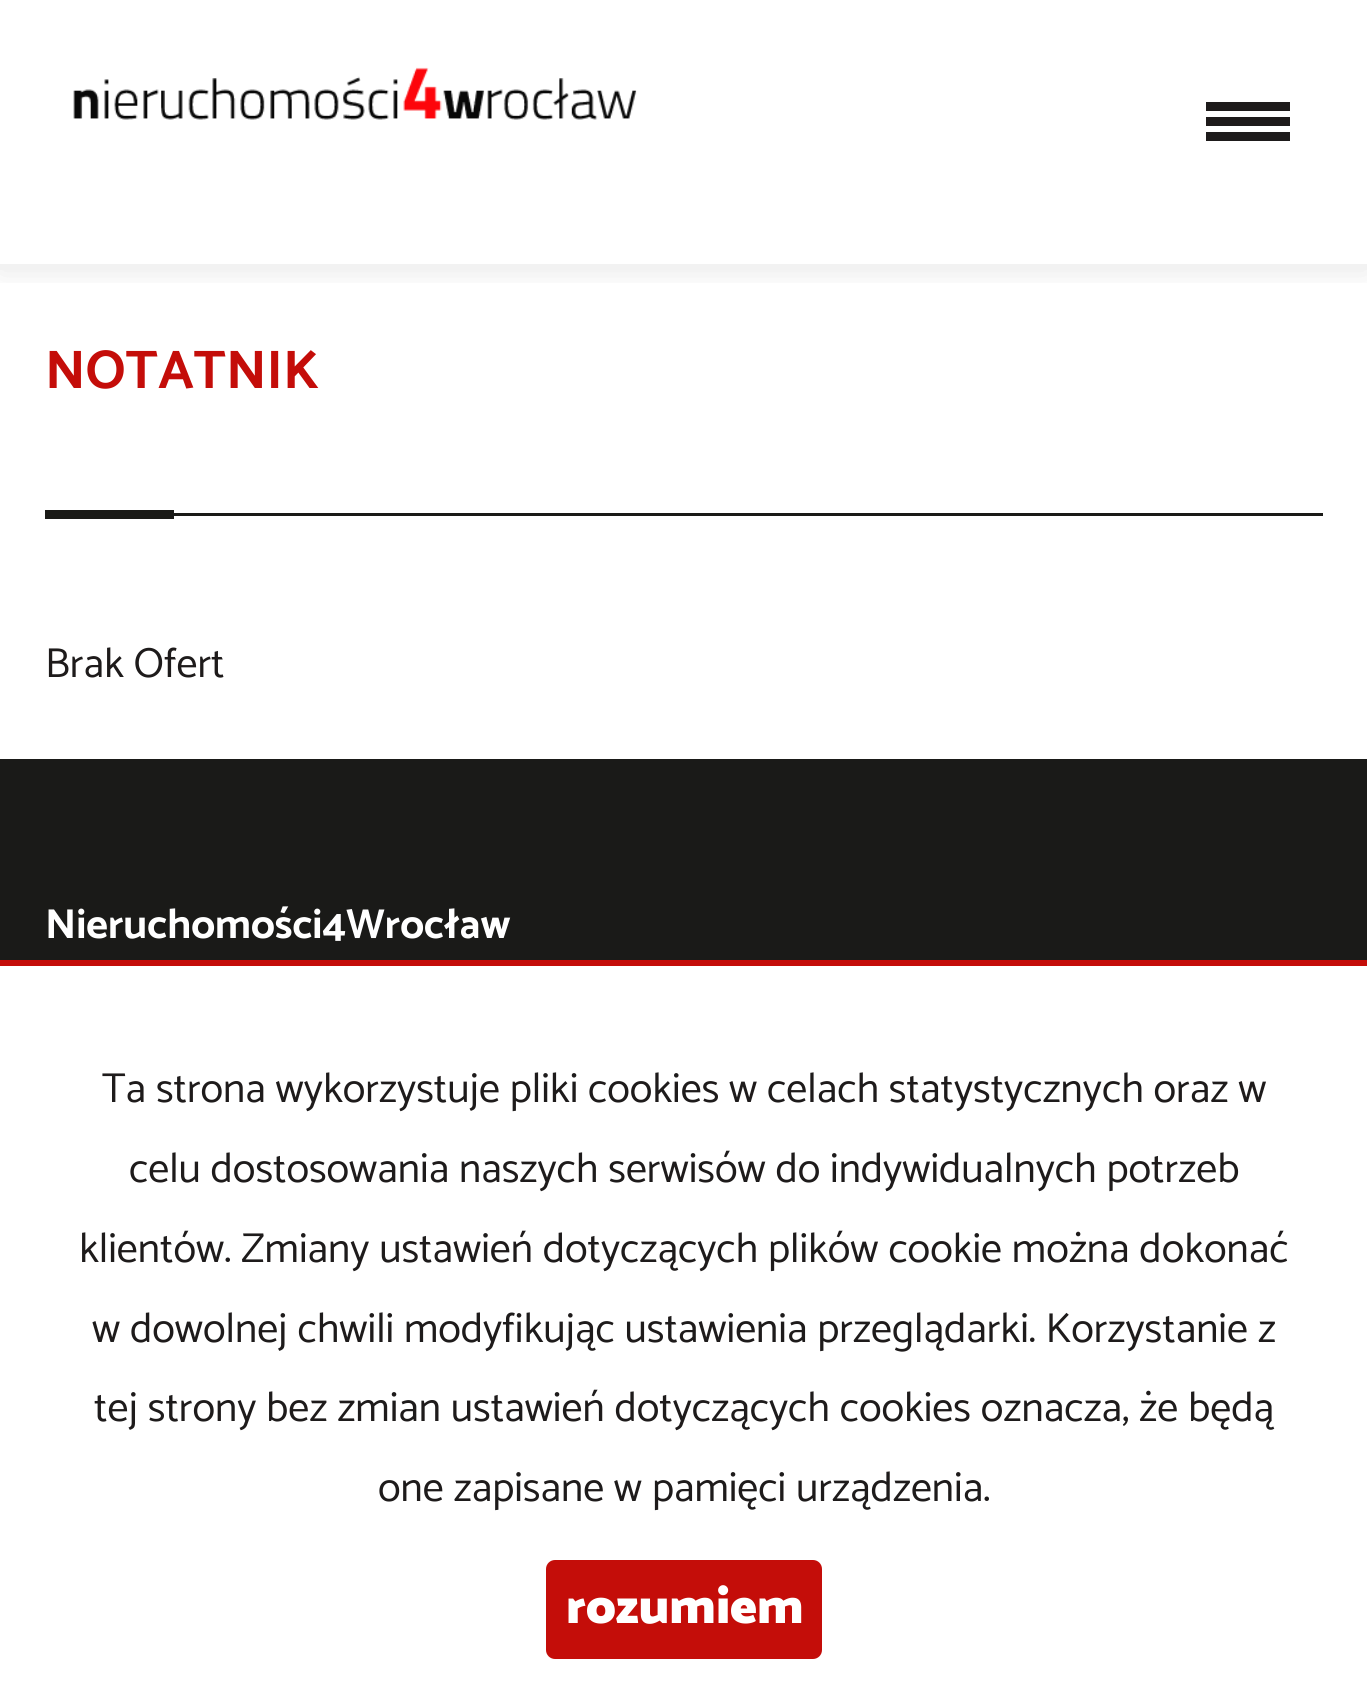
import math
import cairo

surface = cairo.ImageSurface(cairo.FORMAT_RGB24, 1367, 1705)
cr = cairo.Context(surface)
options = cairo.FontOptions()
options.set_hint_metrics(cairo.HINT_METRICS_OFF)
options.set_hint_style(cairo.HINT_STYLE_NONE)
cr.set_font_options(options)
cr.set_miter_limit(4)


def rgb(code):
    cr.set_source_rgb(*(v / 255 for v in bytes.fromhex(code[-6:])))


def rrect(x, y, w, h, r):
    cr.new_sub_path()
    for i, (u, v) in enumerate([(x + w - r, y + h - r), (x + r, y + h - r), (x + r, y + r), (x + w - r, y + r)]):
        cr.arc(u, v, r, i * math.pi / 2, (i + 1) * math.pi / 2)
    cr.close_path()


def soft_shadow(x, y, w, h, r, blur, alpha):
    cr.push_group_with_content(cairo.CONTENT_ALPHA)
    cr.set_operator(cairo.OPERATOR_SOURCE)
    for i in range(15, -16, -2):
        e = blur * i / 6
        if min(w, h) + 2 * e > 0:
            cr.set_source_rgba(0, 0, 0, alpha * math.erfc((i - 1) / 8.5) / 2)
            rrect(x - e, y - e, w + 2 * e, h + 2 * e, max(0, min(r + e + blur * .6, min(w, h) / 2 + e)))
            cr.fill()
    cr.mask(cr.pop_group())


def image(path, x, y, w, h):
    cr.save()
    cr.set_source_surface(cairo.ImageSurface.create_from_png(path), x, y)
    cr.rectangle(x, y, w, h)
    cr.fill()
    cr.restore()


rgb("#ffffff")
cr.paint()
cr.save()
cr.rectangle(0, 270, 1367, 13)
cr.clip()
rgb("#000000")
soft_shadow(0, 0, 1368, 270, 0, 15, 0.1)
cr.restore()
rgb("#f2f2f2")
cr.rectangle(0, 264, 1367, 6)
cr.fill()
image("img/1.png", 73, 67, 564, 53)
for x, y, w, h, color in [
    (1206, 102, 84, 9, "#1e1b1b"),
    (1206, 117, 84, 9, "#1e1b1b"),
    (1206, 132, 84, 9, "#1e1b1b"),
    (174, 513, 1149, 3, "#1a1a17"),
    (45, 510, 129, 9, "#1a1a17"),
    (0, 759, 1367, 201, "#1a1a18"),
    (0, 960, 1367, 6, "#c40d09"),
]:
    rgb(color)
    cr.rectangle(x, y, w, h)
    cr.fill()
rrect(550.5, 1564.5, 267, 90, 4.5)
cr.fill_preserve()
cr.set_line_width(9)
cr.stroke()
cr.select_font_face("Catamaran", cairo.FONT_SLANT_NORMAL, cairo.FONT_WEIGHT_BOLD)
cr.set_font_size(54.5)
cr.move_to(45, 388)
cr.show_text("NOTATNIK")
cr.select_font_face("Catamaran")
cr.set_font_size(42)
rgb("#1e1b1b")
cr.move_to(45, 677)
cr.show_text("Brak Ofert")
cr.select_font_face("Catamaran", cairo.FONT_SLANT_NORMAL, cairo.FONT_WEIGHT_BOLD)
rgb("#ffffff")
cr.move_to(45, 938)
cr.show_text("Nieruchomości4Wrocław")
cr.select_font_face("Catamaran")
rgb("#1e1b1b")
for x, y, s in [
    (102, 1102, "Ta strona wykorzystuje pliki cookies w celach statystycznych oraz w"),
    (129, 1182, "celu dostosowania naszych serwisów do indywidualnych potrzeb"),
    (79, 1262, "klientów. Zmiany ustawień dotyczących plików cookie można dokonać"),
    (92, 1342, "w dowolnej chwili modyfikując ustawienia przeglądarki. Korzystanie z"),
    (94, 1421, "tej strony bez zmian ustawień dotyczących cookies oznacza, że będą"),
    (378, 1501, "one zapisane w pamięci urządzenia."),
]:
    cr.move_to(x, y)
    cr.show_text(s)
cr.select_font_face("Catamaran Black")
cr.set_font_size(50.5)
rgb("#ffffff")
cr.move_to(566, 1623)
cr.show_text("rozumiem")
surface.write_to_png("page.png")
